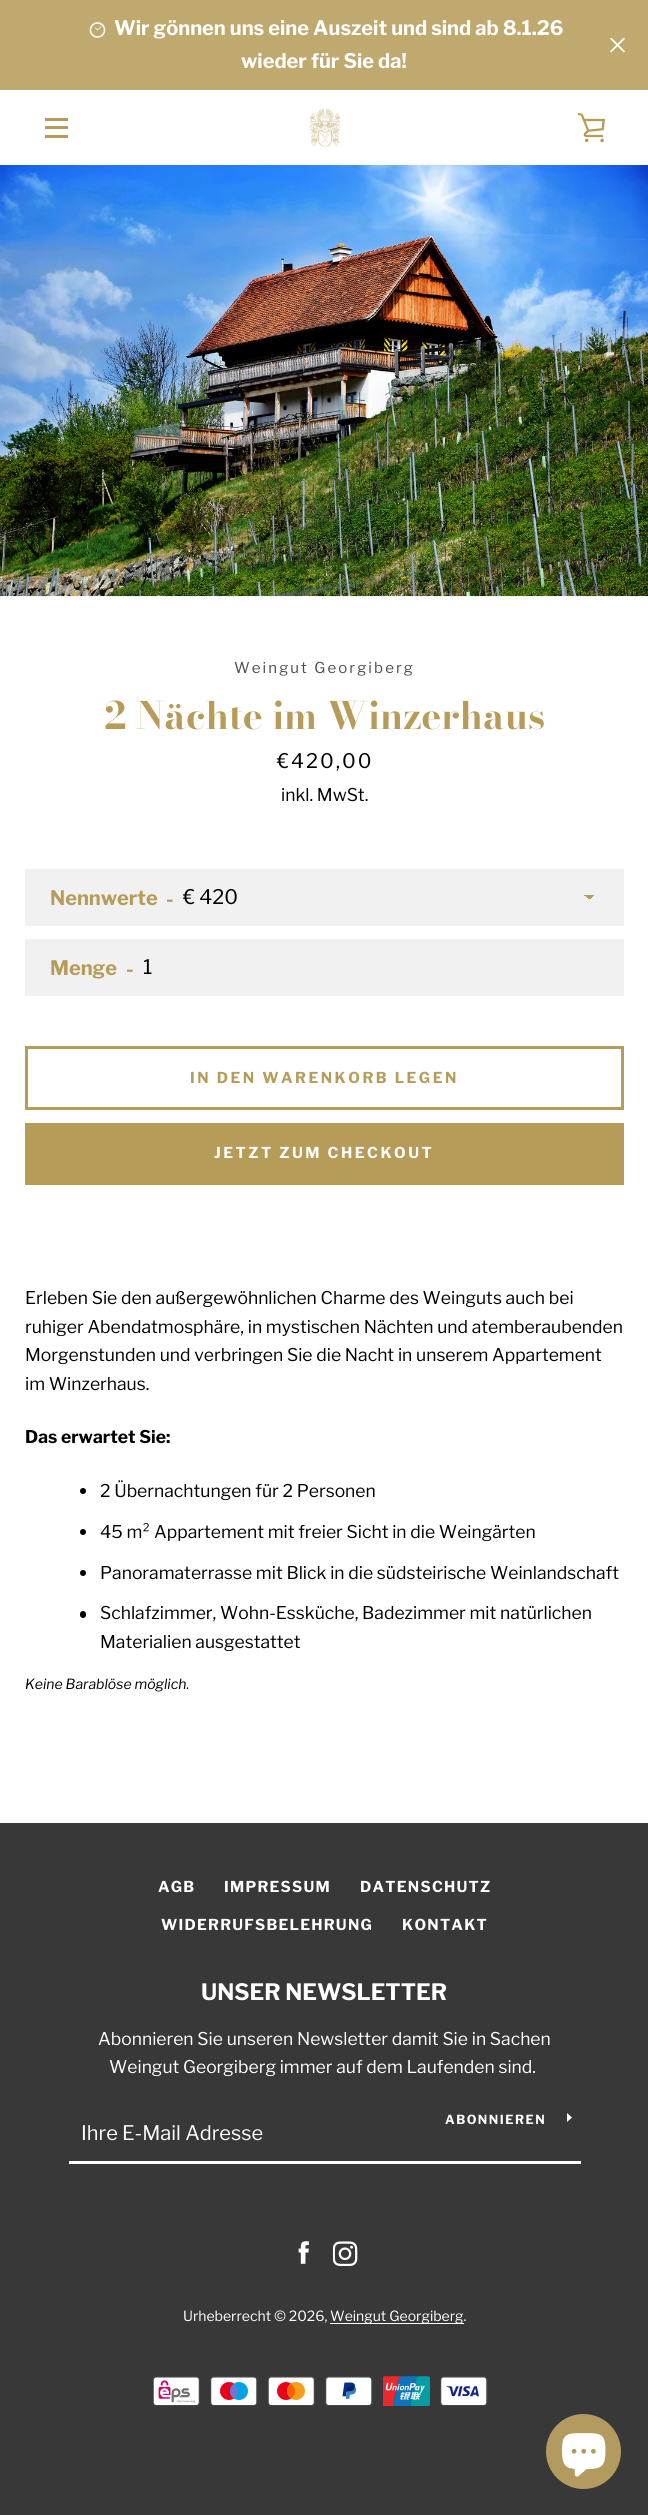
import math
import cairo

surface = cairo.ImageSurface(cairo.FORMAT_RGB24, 648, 2515)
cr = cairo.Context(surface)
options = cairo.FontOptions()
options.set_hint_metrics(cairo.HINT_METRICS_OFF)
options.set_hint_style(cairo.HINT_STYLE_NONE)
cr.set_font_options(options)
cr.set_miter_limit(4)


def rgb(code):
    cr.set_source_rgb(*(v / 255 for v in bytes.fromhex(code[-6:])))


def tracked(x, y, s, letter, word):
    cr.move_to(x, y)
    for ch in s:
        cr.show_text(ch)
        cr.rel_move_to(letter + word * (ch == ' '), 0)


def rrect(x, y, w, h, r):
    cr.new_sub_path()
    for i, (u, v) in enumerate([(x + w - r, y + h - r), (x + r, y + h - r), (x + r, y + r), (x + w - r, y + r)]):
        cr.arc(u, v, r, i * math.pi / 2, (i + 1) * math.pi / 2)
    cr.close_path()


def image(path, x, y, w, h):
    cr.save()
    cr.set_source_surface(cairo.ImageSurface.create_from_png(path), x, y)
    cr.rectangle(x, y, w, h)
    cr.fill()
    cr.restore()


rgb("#383838")
cr.paint()
rgb("#ffffff")
cr.rectangle(0, 90, 648, 1733)
cr.fill()
rgb("#c0a96e")
cr.rectangle(0, 0, 648, 90)
cr.fill()
image("img/1.png", 89, 22, 17, 16)
image("img/2.png", 610, 38, 15, 15)
for x, y, w, h, color in [
    (45, 118, 23, 3, "#b69c58"),
    (45, 126, 23, 3, "#b69c58"),
    (45, 135, 23, 3, "#b69c58"),
]:
    rgb(color)
    cr.rectangle(x, y, w, h)
    cr.fill()
image("img/3.png", 310, 108, 30, 39)
image("img/4.png", 578, 112, 27, 31)
image("img/5.png", 0, 165, 648, 432)
rgb("#f1f1f1")
cr.rectangle(25, 869, 599, 57)
cr.fill()
gradient = cairo.LinearGradient(589, 895, 594, 900)
gradient.add_color_stop_rgba(0.5, 0.714, 0.612, 0.345, 1)
gradient.add_color_stop_rgba(0.5, 0.945, 0.945, 0.945, 1)
cr.set_source(gradient)
cr.rectangle(589, 895, 5, 4)
cr.fill()
gradient = cairo.LinearGradient(584, 900, 589, 895)
gradient.add_color_stop_rgba(0.5, 0.945, 0.945, 0.945, 1)
gradient.add_color_stop_rgba(0.5, 0.714, 0.612, 0.345, 1)
cr.set_source(gradient)
cr.rectangle(584, 895, 5, 4)
cr.fill()
rgb("#f1f1f1")
cr.rectangle(25, 939, 599, 57)
cr.fill()
cr.rectangle(26.5, 1047.5, 596, 61)
rgb("#b69c58")
cr.set_line_width(3)
cr.stroke()
cr.rectangle(25, 1123, 599, 62)
cr.fill()
rgb("#000000")
cr.arc(83, 1491, 3, 0, 2 * math.pi)
cr.fill()
cr.arc(83, 1532, 3, 0, 2 * math.pi)
cr.fill()
cr.arc(83, 1573, 3, 0, 2 * math.pi)
cr.fill()
rrect(80, 1611, 6, 7, 3)
cr.fill()
rgb("#ffffff")
cr.rectangle(69, 2161, 512, 3)
cr.fill()
cr.new_path()
cr.move_to(572, 2117.5)
cr.line_to(567, 2122)
cr.line_to(567, 2113)
cr.close_path()
cr.fill()
image("img/6.png", 298, 2241, 11, 23)
image("img/7.png", 333, 2241, 25, 25)
cr.rectangle(330, 2323, 134, 1)
cr.fill()
image("img/8.png", 153, 2376, 47, 30)
image("img/9.png", 210, 2376, 48, 30)
image("img/10.png", 268, 2376, 47, 30)
image("img/11.png", 325, 2376, 48, 30)
image("img/12.png", 383, 2376, 47, 30)
image("img/13.png", 440, 2376, 48, 30)
rgb("#b39b60")
cr.arc(583.5, 2451.5, 37.5, 0, 2 * math.pi)
cr.fill()
image("img/14.png", 562, 2433, 44, 44)
cr.select_font_face("Libre Franklin", cairo.FONT_SLANT_NORMAL, cairo.FONT_WEIGHT_BOLD)
cr.set_font_size(20)
rgb("#ffffff")
cr.move_to(114, 35)
cr.show_text("Wir gönnen uns eine Auszeit und sind ab 8.1.26")
cr.move_to(241, 68)
cr.show_text("wieder für Sie da!")
cr.select_font_face("Libre Franklin")
cr.set_font_size(15)
rgb("#4d4d4d")
tracked(234, 673, "Weingut Georgiberg", 2.1, 0)
cr.select_font_face("Bodoni Moda", cairo.FONT_SLANT_NORMAL, cairo.FONT_WEIGHT_BOLD)
cr.set_font_size(37.5)
rgb("#b69c58")
cr.move_to(104, 729)
cr.show_text("2 Nächte im Winzerhaus")
cr.select_font_face("Libre Franklin")
cr.set_font_size(20)
rgb("#000000")
tracked(277, 768, "€420,00", 2, 0)
cr.set_font_size(17.5)
cr.move_to(281, 801)
cr.show_text("inkl. MwSt.")
cr.select_font_face("Libre Franklin", cairo.FONT_SLANT_NORMAL, cairo.FONT_WEIGHT_BOLD)
cr.set_font_size(20)
rgb("#b69c58")
cr.move_to(50, 905)
cr.show_text("Nennwerte")
cr.move_to(166, 906)
cr.show_text("-")
cr.save()
cr.rectangle(183, 883, 405, 30)
cr.clip()
cr.select_font_face("Libre Franklin")
rgb("#000000")
cr.move_to(183, 904)
cr.show_text("€ 420")
cr.restore()
cr.move_to(50, 975)
cr.show_text("Menge")
cr.move_to(126, 976)
cr.show_text("-")
cr.select_font_face("Libre Franklin")
rgb("#000000")
cr.move_to(143, 974)
cr.show_text("1")
cr.select_font_face("Libre Franklin", cairo.FONT_SLANT_NORMAL, cairo.FONT_WEIGHT_BOLD)
cr.set_font_size(15)
rgb("#b69c58")
tracked(190, 1083, "IN DEN WARENKORB LEGEN", 2.5, 0)
rgb("#ffffff")
tracked(214, 1158, "JETZT ZUM CHECKOUT", 2.5, 0)
cr.select_font_face("Libre Franklin")
cr.set_font_size(17.5)
rgb("#000000")
for x, y, s in [
    (25, 1304, "Erleben Sie den außergewöhnlichen Charme des Weinguts auch bei"),
    (25, 1333, "ruhiger Abendatmosphäre, in mystischen Nächten und atemberaubenden"),
    (25, 1361, "Morgenstunden und verbringen Sie die Nacht in unserem Appartement"),
    (25, 1390, "im Winzerhaus."),
]:
    cr.move_to(x, y)
    cr.show_text(s)
cr.select_font_face("Libre Franklin", cairo.FONT_SLANT_NORMAL, cairo.FONT_WEIGHT_BOLD)
cr.move_to(25, 1443)
cr.show_text("Das erwartet Sie:")
cr.select_font_face("Libre Franklin")
for x, y, s in [
    (100, 1497, "2 Übernachtungen für 2 Personen"),
    (100, 1538, "45 m² Appartement mit freier Sicht in die Weingärten"),
    (100, 1579, "Panoramaterrasse mit Blick in die südsteirische Weinlandschaft"),
    (100, 1619, "Schlafzimmer, Wohn-Essküche, Badezimmer mit natürlichen"),
    (100, 1648, "Materialien ausgestattet"),
]:
    cr.move_to(x, y)
    cr.show_text(s)
cr.select_font_face("Libre Franklin", cairo.FONT_SLANT_ITALIC)
cr.set_font_size(14)
cr.move_to(25, 1689)
cr.show_text("Keine Barablöse möglich.")
cr.select_font_face("Libre Franklin", cairo.FONT_SLANT_NORMAL, cairo.FONT_WEIGHT_BOLD)
cr.set_font_size(15)
rgb("#ffffff")
for x, y, s in [
    (158, 1892, "AGB"),
    (224, 1892, "IMPRESSUM"),
    (360, 1892, "DATENSCHUTZ"),
    (161, 1930, "WIDERRUFSBELEHRUNG"),
    (402, 1930, "KONTAKT"),
]:
    tracked(x, y, s, 1.25, 0)
cr.set_font_size(22.5)
cr.move_to(201, 2000)
cr.show_text("UNSER NEWSLETTER")
cr.select_font_face("Libre Franklin")
cr.set_font_size(17.5)
cr.move_to(98, 2045)
cr.show_text("Abonnieren Sie unseren Newsletter damit Sie in Sachen")
cr.move_to(109, 2073)
cr.show_text("Weingut Georgiberg immer auf dem Laufenden sind.")
cr.select_font_face("Libre Franklin", cairo.FONT_SLANT_NORMAL, cairo.FONT_WEIGHT_BOLD)
cr.set_font_size(12.5)
tracked(445, 2124, "ABONNIEREN", 1.5, 0)
cr.select_font_face("Libre Franklin")
cr.set_font_size(20)
cr.move_to(81, 2140)
cr.show_text("Ihre E-Mail Adresse")
cr.set_font_size(14)
cr.move_to(183, 2321)
cr.show_text("Urheberrecht © 2026,")
cr.move_to(330, 2321)
cr.show_text("Weingut Georgiberg.")
surface.write_to_png("page.png")
